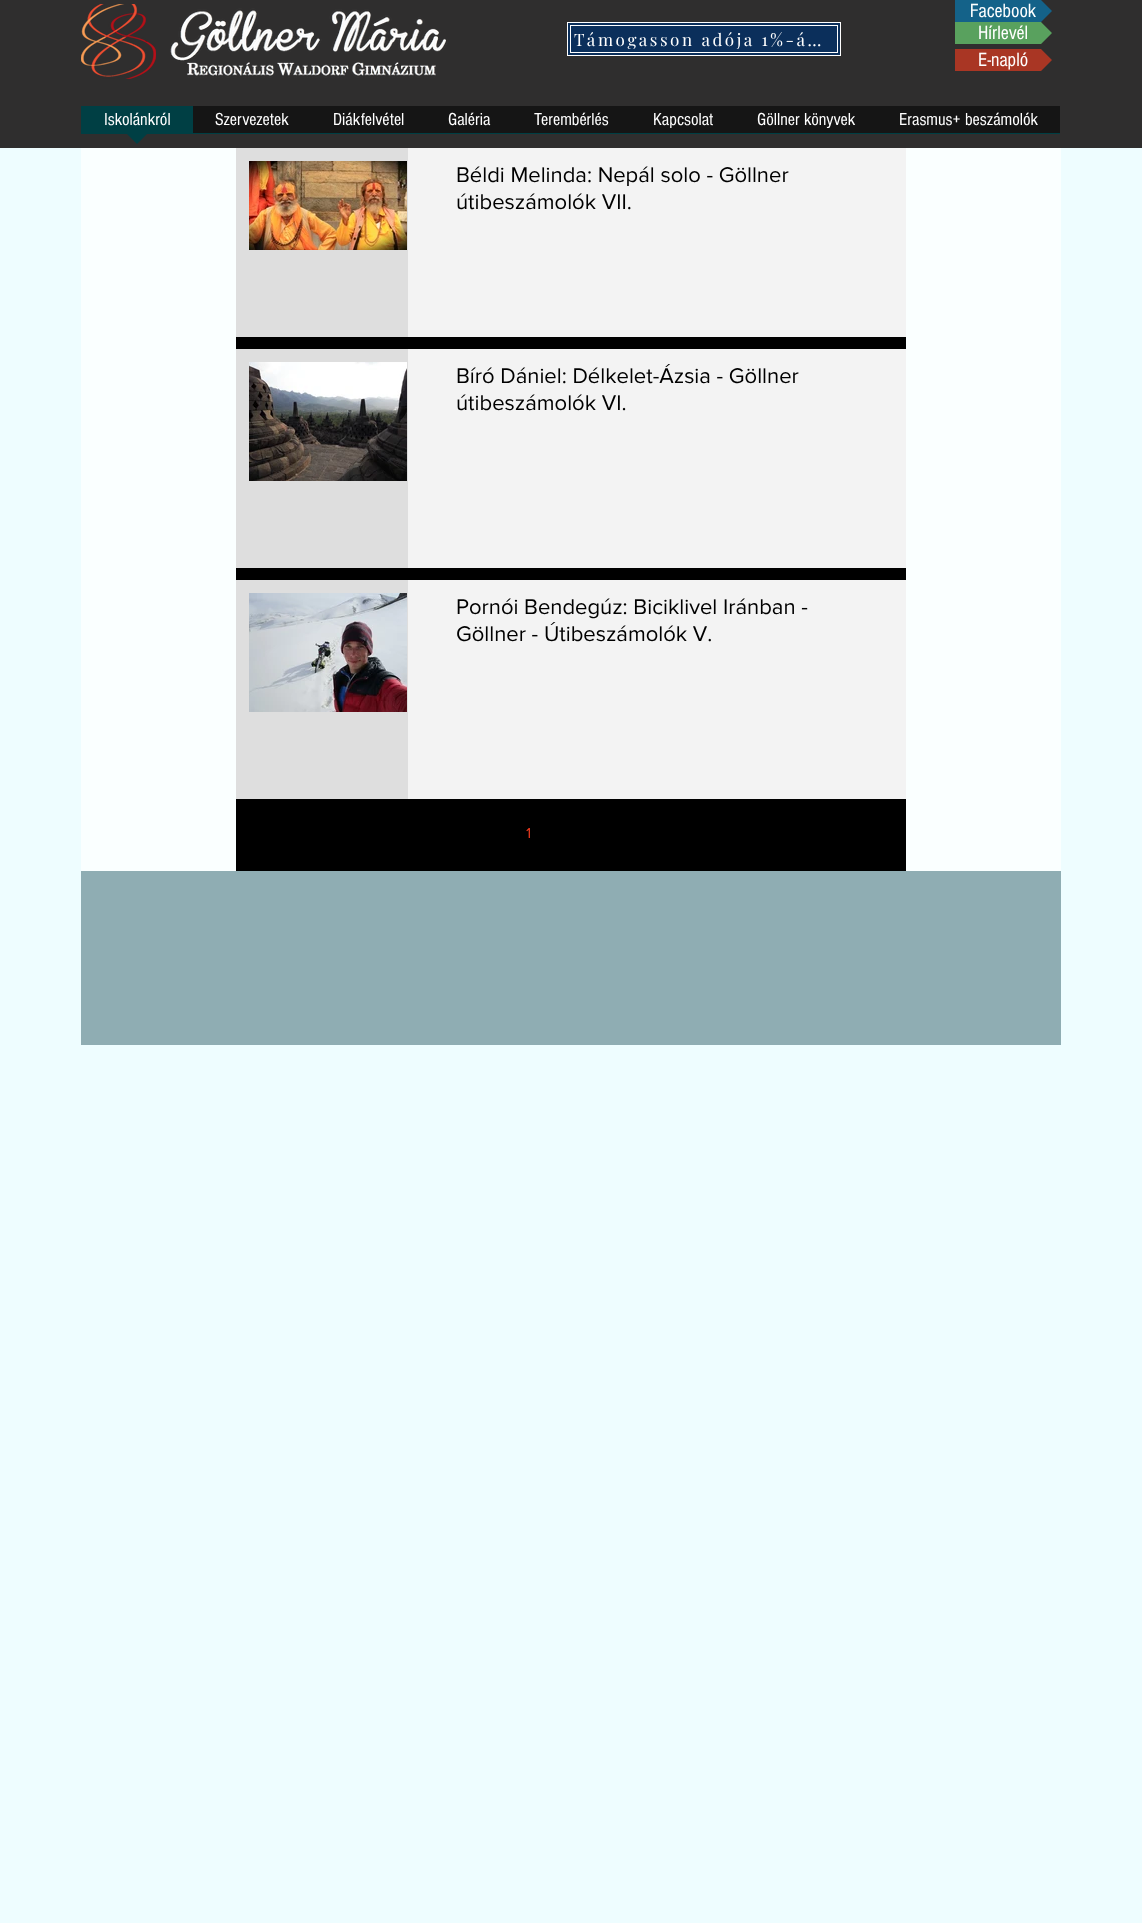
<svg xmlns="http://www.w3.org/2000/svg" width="1142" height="1923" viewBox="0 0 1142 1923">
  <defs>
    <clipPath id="clip1"><rect x="955" y="0" width="97" height="22"/></clipPath>
    <clipPath id="clip2"><rect x="574" y="29" width="260" height="20"/></clipPath>
    <clipPath id="clip3"><rect x="955" y="22" width="97" height="22"/></clipPath>
    <clipPath id="clip4"><rect x="955" y="49" width="97" height="22"/></clipPath>
  </defs>
  <rect width="100%" height="100%" fill="#eefdff"/>
  <rect x="0" y="0" width="1142" height="148" fill="#2f2e2e"/>
  <image x="81" y="4" width="75" height="75" href="img1.png"/>
  <image x="170" y="8" width="278" height="70" href="img2.png"/>
  <rect x="955" y="0" width="47" height="22" fill="#146289"/>
  <path d="M1052 11H1002V-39Z" fill="#146289"/>
  <g clip-path="url(#clip1)">
    <path d="M1002 11H1052L1002 61Z" fill="#146289"/>
  </g>
  <text x="970" y="17" font-family="'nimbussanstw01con'" font-size="20" fill="#ffffff">Facebook</text>
  <rect x="567.5" y="22.5" width="273" height="33" fill="#0b2f5b" stroke="#ffffff"/>
  <rect x="570.5" y="25.5" width="267" height="27" fill="none" stroke="#ffffff"/>
  <g clip-path="url(#clip2)">
    <text x="574" y="46" font-family="Playfair Display" font-size="17" letter-spacing="2.55" fill="#ffffff">Támogasson adója 1%-á…</text>
  </g>
  <rect x="955" y="22" width="47" height="22" fill="#59a15e"/>
  <g clip-path="url(#clip3)">
    <path d="M1052 33H1002V-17ZM1002 33H1052L1002 83Z" fill="#59a15e"/>
  </g>
  <text x="978" y="39" font-family="'nimbussanstw01con'" font-size="20" fill="#ffffff">Hírlevél</text>
  <rect x="955" y="49" width="47" height="22" fill="#a93624"/>
  <g clip-path="url(#clip4)">
    <path d="M1052 60H1002V10ZM1002 60H1052L1002 110Z" fill="#a93624"/>
  </g>
  <text x="978" y="66" font-family="'nimbussanstw01con'" font-size="20" fill="#ffffff">E-napló</text>
  <rect x="193" y="106" width="867" height="27" fill="#151515"/>
  <rect x="81" y="133" width="979" height="1" fill="#003f44"/>
  <rect x="81" y="106" width="112" height="27" fill="#003f44"/>
  <text x="104" y="125" font-family="'nimbussanstw01con'" font-size="18" fill="#ffffff">Iskolánkról</text>
  <path d="M126 133H148L137 144Z" fill="#003f44"/>
  <text x="215" y="125" font-family="'nimbussanstw01con'" font-size="18" fill="#ffffff">Szervezetek</text>
  <text x="333" y="125" font-family="'nimbussanstw01con'" font-size="18" fill="#ffffff">Diákfelvétel</text>
  <text x="448" y="125" font-family="'nimbussanstw01con'" font-size="18" fill="#ffffff">Galéria</text>
  <text x="534" y="125" font-family="'nimbussanstw01con'" font-size="18" fill="#ffffff">Terembérlés</text>
  <text x="653" y="125" font-family="'nimbussanstw01con'" font-size="18" fill="#ffffff">Kapcsolat</text>
  <text x="757" y="125" font-family="'nimbussanstw01con'" font-size="18" fill="#ffffff">Göllner könyvek</text>
  <text x="899" y="125" font-family="'nimbussanstw01con'" font-size="18" fill="#ffffff">Erasmus+ beszámolók</text>
  <rect x="81" y="148" width="980" height="723" fill="#faffff"/>
  <rect x="236" y="337" width="670" height="534" fill="#000000"/>
  <rect x="236" y="148" width="172" height="189" fill="#dedede"/>
  <image x="249" y="161" width="158" height="89" href="img3.png"/>
  <rect x="408" y="148" width="498" height="189" fill="#f3f3f3"/>
  <text x="456" y="182" font-family="'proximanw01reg'" font-size="22" fill="#000000">Béldi Melinda: Nepál solo - Göllner</text>
  <text x="456" y="209" font-family="'proximanw01reg'" font-size="22" fill="#000000">útibeszámolók VII.</text>
  <rect x="236" y="349" width="172" height="219" fill="#dedede"/>
  <image x="249" y="362" width="158" height="119" href="img4.png"/>
  <rect x="408" y="349" width="498" height="219" fill="#f3f3f3"/>
  <text x="456" y="383" font-family="'proximanw01reg'" font-size="22" fill="#000000">Bíró Dániel: Délkelet-Ázsia - Göllner</text>
  <text x="456" y="410" font-family="'proximanw01reg'" font-size="22" fill="#000000">útibeszámolók VI.</text>
  <rect x="236" y="580" width="172" height="219" fill="#dedede"/>
  <image x="249" y="593" width="158" height="119" href="img5.png"/>
  <rect x="408" y="580" width="498" height="219" fill="#f3f3f3"/>
  <text x="456" y="614" font-family="'proximanw01reg'" font-size="22" fill="#000000">Pornói Bendegúz: Biciklivel Iránban -</text>
  <text x="456" y="641" font-family="'proximanw01reg'" font-size="22" fill="#000000">Göllner - Útibeszámolók V.</text>
  <text x="526" y="838" font-family="'proximanw01reg'" font-size="15" fill="#ed3a1e">1</text>
  <rect x="81" y="871" width="980" height="174" fill="#8fadb3"/>
</svg>
